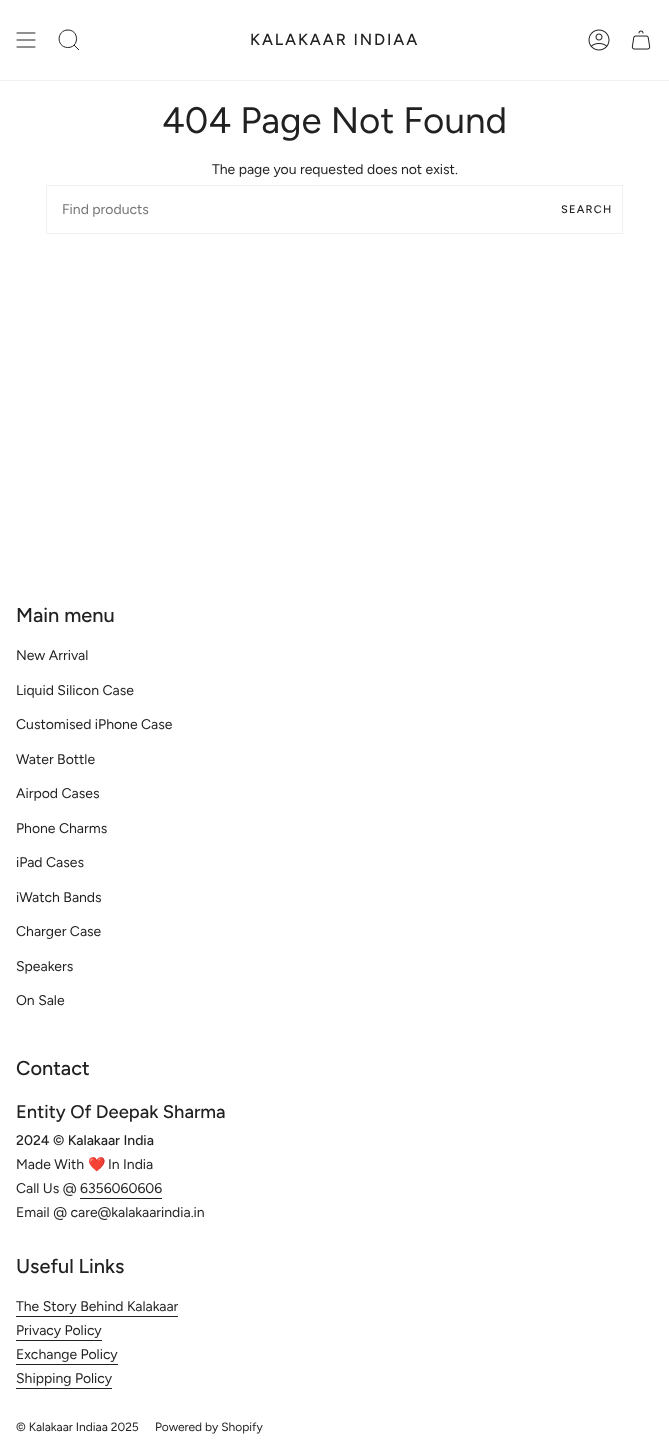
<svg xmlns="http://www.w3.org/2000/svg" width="669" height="1447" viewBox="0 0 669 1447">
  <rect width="100%" height="100%" fill="#ffffff"/>
  <rect x="0" y="80" width="669" height="1" fill="#f0f0f0"/>
  <path d="M17 33H35M17 40H35M17 47H35" fill="none" stroke="#212121" stroke-linecap="round" stroke-linejoin="round"/>
  <path d="M68 30C79.5 30 79.5 48 67.5 47.5C56 47 56.5 30 68 30ZM74 45L79 50" fill="none" stroke="#212121"/>
  <text x="250" y="45" font-family="Figtree" font-size="16" font-weight="500" letter-spacing="1.9" fill="#212121">KALAKAAR INDIAA</text>
  <image x="588" y="29" width="22" height="22" href="img1.png"/>
  <image x="631" y="30" width="20" height="20" href="img2.png"/>
  <text x="162" y="133" font-family="Figtree" font-size="36.75" fill="#212121">404 Page Not Found</text>
  <text x="212" y="174" font-family="Figtree" font-size="14" fill="#212121">The page you requested does not exist.</text>
  <rect x="46.5" y="185.5" width="576" height="48" fill="none" stroke="#f0f0f0"/>
  <text x="62" y="214" font-family="Figtree" font-size="14" fill="#757575">Find products</text>
  <text x="561" y="213" font-family="Figtree" font-size="11" font-weight="500" letter-spacing="1.25" fill="#212121">SEARCH</text>
  <text x="16" y="622" font-family="Figtree" font-size="20" font-weight="500" fill="#212121">Main menu</text>
  <text x="16" y="660" font-family="Figtree" font-size="14" fill="#212121">New Arrival</text>
  <text x="16" y="695" font-family="Figtree" font-size="14" fill="#212121">Liquid Silicon Case</text>
  <text x="16" y="729" font-family="Figtree" font-size="14" fill="#212121">Customised iPhone Case</text>
  <text x="16" y="764" font-family="Figtree" font-size="14" fill="#212121">Water Bottle</text>
  <text x="16" y="798" font-family="Figtree" font-size="14" fill="#212121">Airpod Cases</text>
  <text x="16" y="833" font-family="Figtree" font-size="14" fill="#212121">Phone Charms</text>
  <text x="16" y="867" font-family="Figtree" font-size="14" fill="#212121">iPad Cases</text>
  <text x="16" y="902" font-family="Figtree" font-size="14" fill="#212121">iWatch Bands</text>
  <text x="16" y="936" font-family="Figtree" font-size="14" fill="#212121">Charger Case</text>
  <text x="16" y="971" font-family="Figtree" font-size="14" fill="#212121">Speakers</text>
  <text x="16" y="1005" font-family="Figtree" font-size="14" fill="#212121">On Sale</text>
  <text x="16" y="1075" font-family="Figtree" font-size="20" font-weight="500" fill="#212121">Contact</text>
  <text x="16" y="1118" font-family="Figtree" font-size="18.4" font-weight="500" fill="#212121">Entity Of Deepak Sharma</text>
  <text x="16" y="1145" font-family="Figtree" font-size="14" font-weight="500" fill="#212121">2024 © Kalakaar India</text>
  <text x="16" y="1169" font-family="Figtree" font-size="14" fill="#212121">Made With</text>
  <text x="88" y="1169" font-family="Noto Color Emoji" font-size="14" fill="#212121">❤️</text>
  <text x="108" y="1169" font-family="Figtree" font-size="14" fill="#212121">In India</text>
  <text x="16" y="1193" font-family="Figtree" font-size="14" fill="#212121">Call Us @ 6356060606</text>
  <rect x="80" y="1198" width="82" height="1" fill="#212121"/>
  <text x="16" y="1217" font-family="Figtree" font-size="14" fill="#212121">Email @ care@kalakaarindia.in</text>
  <text x="16" y="1273" font-family="Figtree" font-size="20" font-weight="500" fill="#212121">Useful Links</text>
  <text x="16" y="1311" font-family="Figtree" font-size="14" fill="#212121">The Story Behind Kalakaar</text>
  <rect x="16" y="1316" width="162" height="1" fill="#212121"/>
  <text x="16" y="1335" font-family="Figtree" font-size="14" fill="#212121">Privacy Policy</text>
  <rect x="16" y="1340" width="86" height="1" fill="#212121"/>
  <text x="16" y="1359" font-family="Figtree" font-size="14" fill="#212121">Exchange Policy</text>
  <rect x="16" y="1364" width="102" height="1" fill="#212121"/>
  <text x="16" y="1383" font-family="Figtree" font-size="14" fill="#212121">Shipping Policy</text>
  <rect x="16" y="1388" width="96" height="1" fill="#212121"/>
  <text x="16" y="1431" font-family="Figtree" font-size="12" fill="#212121">© Kalakaar Indiaa 2025</text>
  <text x="155" y="1431" font-family="Figtree" font-size="12" fill="#212121">Powered by Shopify</text>
</svg>
